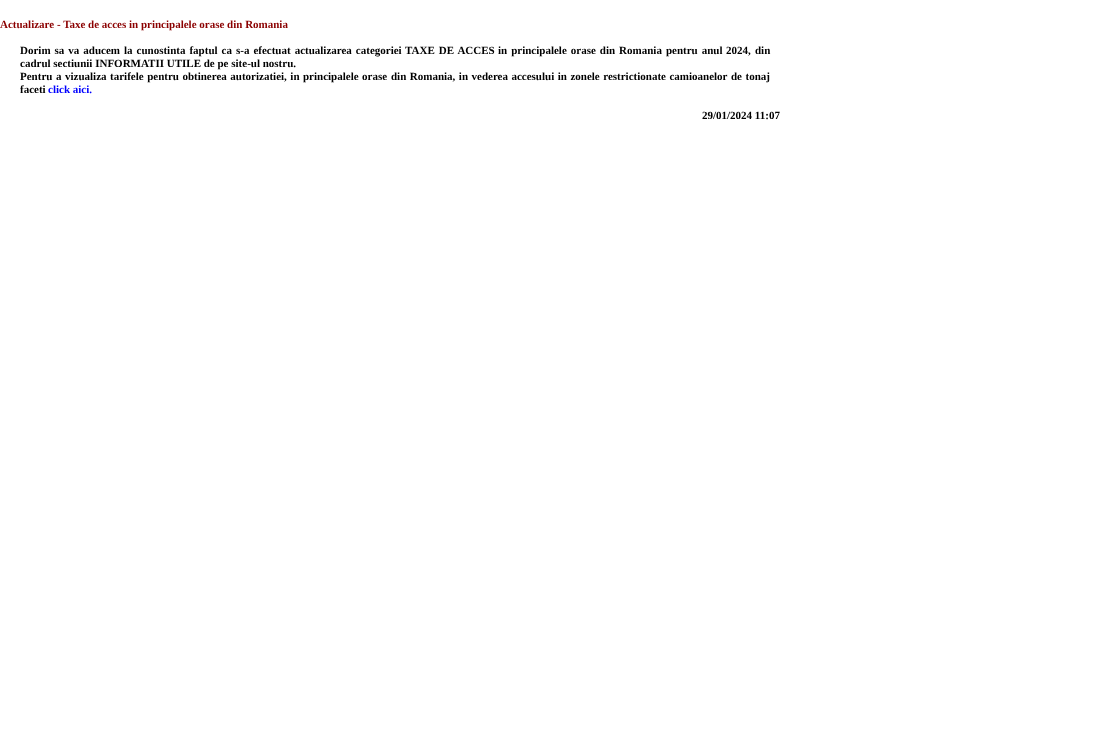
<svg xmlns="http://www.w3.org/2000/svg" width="1118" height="741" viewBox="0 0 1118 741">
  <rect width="100%" height="100%" fill="#ffffff"/>
  <text x="0" y="28" font-family="Liberation Serif" font-size="11" font-weight="bold" fill="#8b0000">Actualizare - Taxe de acces in principalele orase din Romania</text>
  <text x="20" y="54" word-spacing="1.25" font-family="Liberation Serif" font-size="11" font-weight="bold" fill="#000000">Dorim sa va aducem la cunostinta faptul ca s-a efectuat actualizarea categoriei</text>
  <text x="405" y="54" word-spacing="1.25" font-family="Liberation Serif" font-size="11" font-weight="bold" fill="#000000">TAXE DE ACCES</text>
  <text x="498" y="54" word-spacing="1.25" font-family="Liberation Serif" font-size="11" font-weight="bold" fill="#000000">in principalele orase din Romania pentru anul</text>
  <text x="726" y="54" font-family="Liberation Serif" font-size="11" font-weight="bold" fill="#000000">2024,</text>
  <text x="755" y="54" font-family="Liberation Serif" font-size="11" font-weight="bold" fill="#000000">din</text>
  <text x="20" y="67" font-family="Liberation Serif" font-size="11" font-weight="bold" fill="#000000">cadrul sectiunii INFORMATII UTILE de pe site-ul nostru.</text>
  <text x="20" y="80" word-spacing="0.75" font-family="Liberation Serif" font-size="11" font-weight="bold" fill="#000000">Pentru a</text>
  <text x="65" y="80" word-spacing="0.75" font-family="Liberation Serif" font-size="11" font-weight="bold" fill="#000000">vizualiza tarifele pentru obtinerea autorizatiei, in principalele orase</text>
  <text x="391" y="80" word-spacing="0.75" font-family="Liberation Serif" font-size="11" font-weight="bold" fill="#000000">din Romania, in vederea accesului in zonele restrictionate camioanelor</text>
  <text x="731" y="80" word-spacing="0.75" font-family="Liberation Serif" font-size="11" font-weight="bold" fill="#000000">de tonaj</text>
  <text x="20" y="93" font-family="Liberation Serif" font-size="11" font-weight="bold" fill="#000000">faceti</text>
  <text x="48" y="93" font-family="Liberation Serif" font-size="11" font-weight="bold" fill="#0000ff">click aici.</text>
  <text x="702" y="119" font-family="Liberation Serif" font-size="11" font-weight="bold" fill="#000000">29/01/2024 11:07</text>
</svg>
